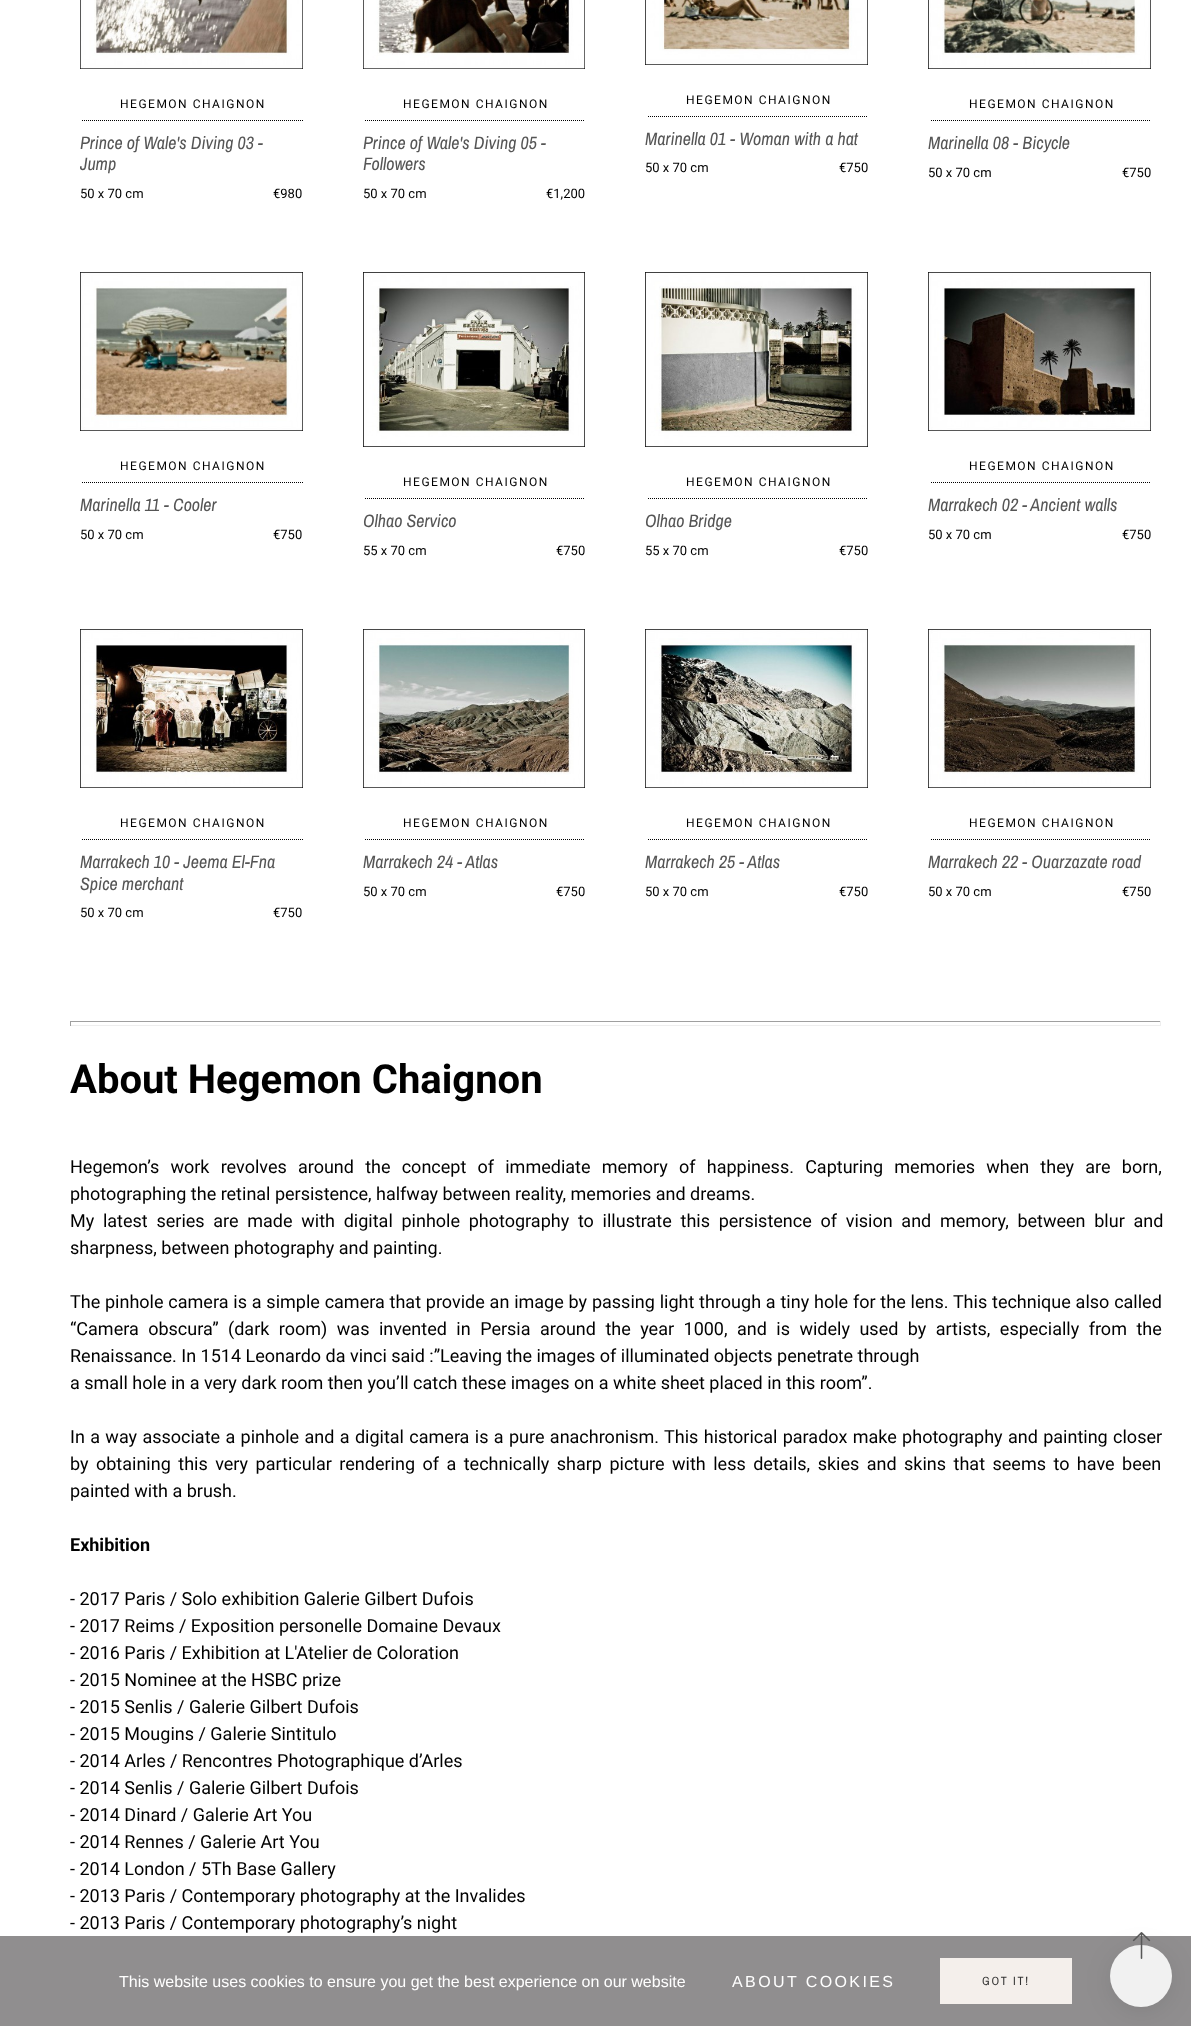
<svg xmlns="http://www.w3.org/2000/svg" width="1191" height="2026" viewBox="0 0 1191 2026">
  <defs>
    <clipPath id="clip1"><rect x="80" y="98" width="223" height="114"/></clipPath>
    <filter id="blur1" x="-50%" y="-200%" width="200%" height="500%"><feGaussianBlur stdDeviation="13.5"/></filter>
  </defs>
  <rect width="100%" height="100%" fill="#ffffff"/>
  <image x="80" y="0" width="223" height="69" href="img1.png"/>
  <path d="M82 120.5H303" fill="none" stroke="#000000" stroke-dasharray="1 1"/>
  <text x="120" y="108" font-family="Roboto" font-size="12" letter-spacing="1.5" fill="#000000">HEGEMON CHAIGNON</text>
  <text x="80" y="149" font-family="Archivo Narrow" font-size="18" font-style="italic" fill="#555555">Prince of Wale's Diving 03 -</text>
  <g clip-path="url(#clip1)">
    <text x="80" y="170" font-family="Archivo Narrow" font-size="18" font-style="italic" fill="#555555">Jump</text>
  </g>
  <text x="80" y="198" font-family="Roboto" font-size="13" fill="#000000">50 x 70 cm</text>
  <text x="273" y="198" font-family="Roboto" font-size="13" fill="#000000">€980</text>
  <image x="363" y="0" width="222" height="69" href="img2.png"/>
  <path d="M365 120.5H585" fill="none" stroke="#000000" stroke-dasharray="1 1"/>
  <text x="403" y="108" font-family="Roboto" font-size="12" letter-spacing="1.5" fill="#000000">HEGEMON CHAIGNON</text>
  <text x="363" y="149" font-family="Archivo Narrow" font-size="18" font-style="italic" fill="#555555">Prince of Wale's Diving 05 -</text>
  <text x="363" y="170" font-family="Archivo Narrow" font-size="18" font-style="italic" fill="#555555">Followers</text>
  <text x="363" y="198" font-family="Roboto" font-size="13" fill="#000000">50 x 70 cm</text>
  <text x="546" y="198" font-family="Roboto" font-size="13" fill="#000000">€1,200</text>
  <image x="645" y="0" width="223" height="65" href="img3.png"/>
  <path d="M648 116.5H868" fill="none" stroke="#000000" stroke-dasharray="1 1"/>
  <text x="686" y="104" font-family="Roboto" font-size="12" letter-spacing="1.5" fill="#000000">HEGEMON CHAIGNON</text>
  <text x="645" y="145" font-family="Archivo Narrow" font-size="18" font-style="italic" fill="#555555">Marinella 01 - Woman with a hat</text>
  <text x="645" y="172" font-family="Roboto" font-size="13" fill="#000000">50 x 70 cm</text>
  <text x="839" y="172" font-family="Roboto" font-size="13" fill="#000000">€750</text>
  <image x="928" y="0" width="223" height="69" href="img4.png"/>
  <path d="M931 120.5H1151" fill="none" stroke="#000000" stroke-dasharray="1 1"/>
  <text x="969" y="108" font-family="Roboto" font-size="12" letter-spacing="1.5" fill="#000000">HEGEMON CHAIGNON</text>
  <text x="928" y="149" font-family="Archivo Narrow" font-size="18" font-style="italic" fill="#555555">Marinella 08 - Bicycle</text>
  <text x="928" y="177" font-family="Roboto" font-size="13" fill="#000000">50 x 70 cm</text>
  <text x="1122" y="177" font-family="Roboto" font-size="13" fill="#000000">€750</text>
  <image x="80" y="272" width="223" height="159" href="img5.png"/>
  <path d="M82 482.5H303" fill="none" stroke="#000000" stroke-dasharray="1 1"/>
  <text x="120" y="470" font-family="Roboto" font-size="12" letter-spacing="1.5" fill="#000000">HEGEMON CHAIGNON</text>
  <text x="80" y="511" font-family="Archivo Narrow" font-size="18" font-style="italic" fill="#555555">Marinella 11 - Cooler</text>
  <text x="80" y="539" font-family="Roboto" font-size="13" fill="#000000">50 x 70 cm</text>
  <text x="273" y="539" font-family="Roboto" font-size="13" fill="#000000">€750</text>
  <image x="363" y="272" width="222" height="175" href="img6.png"/>
  <path d="M365 498.5H585" fill="none" stroke="#000000" stroke-dasharray="1 1"/>
  <text x="403" y="486" font-family="Roboto" font-size="12" letter-spacing="1.5" fill="#000000">HEGEMON CHAIGNON</text>
  <text x="363" y="527" font-family="Archivo Narrow" font-size="18" font-style="italic" fill="#555555">Olhao Servico</text>
  <text x="363" y="555" font-family="Roboto" font-size="13" fill="#000000">55 x 70 cm</text>
  <text x="556" y="555" font-family="Roboto" font-size="13" fill="#000000">€750</text>
  <image x="645" y="272" width="223" height="175" href="img7.png"/>
  <path d="M648 498.5H868" fill="none" stroke="#000000" stroke-dasharray="1 1"/>
  <text x="686" y="486" font-family="Roboto" font-size="12" letter-spacing="1.5" fill="#000000">HEGEMON CHAIGNON</text>
  <text x="645" y="527" font-family="Archivo Narrow" font-size="18" font-style="italic" fill="#555555">Olhao Bridge</text>
  <text x="645" y="555" font-family="Roboto" font-size="13" fill="#000000">55 x 70 cm</text>
  <text x="839" y="555" font-family="Roboto" font-size="13" fill="#000000">€750</text>
  <image x="928" y="272" width="223" height="159" href="img8.png"/>
  <path d="M931 482.5H1151" fill="none" stroke="#000000" stroke-dasharray="1 1"/>
  <text x="969" y="470" font-family="Roboto" font-size="12" letter-spacing="1.5" fill="#000000">HEGEMON CHAIGNON</text>
  <text x="928" y="511" font-family="Archivo Narrow" font-size="18" font-style="italic" fill="#555555">Marrakech 02 - Ancient walls</text>
  <text x="928" y="539" font-family="Roboto" font-size="13" fill="#000000">50 x 70 cm</text>
  <text x="1122" y="539" font-family="Roboto" font-size="13" fill="#000000">€750</text>
  <image x="80" y="629" width="223" height="159" href="img9.png"/>
  <path d="M82 839.5H303" fill="none" stroke="#000000" stroke-dasharray="1 1"/>
  <text x="120" y="827" font-family="Roboto" font-size="12" letter-spacing="1.5" fill="#000000">HEGEMON CHAIGNON</text>
  <text x="80" y="868" font-family="Archivo Narrow" font-size="18" font-style="italic" fill="#555555">Marrakech 10 - Jeema El-Fna</text>
  <text x="80" y="890" font-family="Archivo Narrow" font-size="18" font-style="italic" fill="#555555">Spice merchant</text>
  <text x="80" y="917" font-family="Roboto" font-size="13" fill="#000000">50 x 70 cm</text>
  <text x="273" y="917" font-family="Roboto" font-size="13" fill="#000000">€750</text>
  <image x="363" y="629" width="222" height="159" href="img10.png"/>
  <path d="M365 839.5H585" fill="none" stroke="#000000" stroke-dasharray="1 1"/>
  <text x="403" y="827" font-family="Roboto" font-size="12" letter-spacing="1.5" fill="#000000">HEGEMON CHAIGNON</text>
  <text x="363" y="868" font-family="Archivo Narrow" font-size="18" font-style="italic" fill="#555555">Marrakech 24 - Atlas</text>
  <text x="363" y="896" font-family="Roboto" font-size="13" fill="#000000">50 x 70 cm</text>
  <text x="556" y="896" font-family="Roboto" font-size="13" fill="#000000">€750</text>
  <image x="645" y="629" width="223" height="159" href="img11.png"/>
  <path d="M648 839.5H868" fill="none" stroke="#000000" stroke-dasharray="1 1"/>
  <text x="686" y="827" font-family="Roboto" font-size="12" letter-spacing="1.5" fill="#000000">HEGEMON CHAIGNON</text>
  <text x="645" y="868" font-family="Archivo Narrow" font-size="18" font-style="italic" fill="#555555">Marrakech 25 - Atlas</text>
  <text x="645" y="896" font-family="Roboto" font-size="13" fill="#000000">50 x 70 cm</text>
  <text x="839" y="896" font-family="Roboto" font-size="13" fill="#000000">€750</text>
  <image x="928" y="629" width="223" height="159" href="img12.png"/>
  <path d="M931 839.5H1151" fill="none" stroke="#000000" stroke-dasharray="1 1"/>
  <text x="969" y="827" font-family="Roboto" font-size="12" letter-spacing="1.5" fill="#000000">HEGEMON CHAIGNON</text>
  <text x="928" y="868" font-family="Archivo Narrow" font-size="18" font-style="italic" fill="#555555">Marrakech 22 - Ouarzazate road</text>
  <text x="928" y="896" font-family="Roboto" font-size="13" fill="#000000">50 x 70 cm</text>
  <text x="1122" y="896" font-family="Roboto" font-size="13" fill="#000000">€750</text>
  <rect x="70" y="1021" width="1091" height="1" fill="#9f9f9f"/>
  <rect x="1160" y="1021" width="1" height="5" fill="#eeeeee"/>
  <rect x="70" y="1025" width="1091" height="1" fill="#eeeeee"/>
  <rect x="70" y="1021" width="1" height="5" fill="#9f9f9f"/>
  <text x="70" y="1093" font-family="Roboto" font-size="40" font-weight="bold" fill="#000000">About Hegemon Chaignon</text>
  <text x="70" y="1173" word-spacing="6.75" font-family="Roboto" font-size="18" fill="#000000">Hegemon’s work revolves around the concept of immediate memory of happiness. Capturing memories when they are born,</text>
  <text x="70" y="1200" font-family="Roboto" font-size="18" fill="#000000">photographing the retinal persistence, halfway between reality, memories and dreams.</text>
  <text x="70" y="1227" word-spacing="4.25" font-family="Roboto" font-size="18" fill="#000000">My latest series are made with digital pinhole photography to illustrate this persistence of vision and memory, between blur and</text>
  <text x="70" y="1254" font-family="Roboto" font-size="18" fill="#000000">sharpness, between photography and painting.</text>
  <text x="70" y="1308" word-spacing="0.35" font-family="Roboto" font-size="18" fill="#000000">The pinhole camera is a simple camera that provide an image by passing light through a tiny hole for the lens. This technique also called</text>
  <text x="70" y="1335" word-spacing="5" font-family="Roboto" font-size="18" fill="#000000">“Camera obscura” (dark room) was invented in Persia around the year 1000, and is widely used by artists, especially from the</text>
  <text x="70" y="1362" font-family="Roboto" font-size="18" fill="#000000">Renaissance. In 1514 Leonardo da vinci said :”Leaving the images of illuminated objects penetrate through</text>
  <text x="70" y="1389" font-family="Roboto" font-size="18" fill="#000000">a small hole in a very dark room then you’ll catch these images on a white sheet placed in this room”.</text>
  <text x="70" y="1443" word-spacing="0.9" font-family="Roboto" font-size="18" fill="#000000">In a way associate a pinhole and a digital camera is a pure anachronism. This historical paradox make photography and painting closer</text>
  <text x="70" y="1470" word-spacing="3" font-family="Roboto" font-size="18" fill="#000000">by obtaining this very particular rendering of a technically sharp picture with less details, skies and skins that seems to have been</text>
  <text x="70" y="1497" font-family="Roboto" font-size="18" fill="#000000">painted with a brush.</text>
  <text x="70" y="1551" font-family="Roboto" font-size="18" font-weight="bold" fill="#000000">Exhibition</text>
  <text x="70" y="1605" font-family="Roboto" font-size="18" fill="#000000">- 2017 Paris / Solo exhibition Galerie Gilbert Dufois</text>
  <text x="70" y="1632" font-family="Roboto" font-size="18" fill="#000000">- 2017 Reims / Exposition personelle Domaine Devaux</text>
  <text x="70" y="1659" font-family="Roboto" font-size="18" fill="#000000">- 2016 Paris / Exhibition at L'Atelier de Coloration</text>
  <text x="70" y="1686" font-family="Roboto" font-size="18" fill="#000000">- 2015 Nominee at the HSBC prize</text>
  <text x="70" y="1713" font-family="Roboto" font-size="18" fill="#000000">- 2015 Senlis / Galerie Gilbert Dufois</text>
  <text x="70" y="1740" font-family="Roboto" font-size="18" fill="#000000">- 2015 Mougins / Galerie Sintitulo</text>
  <text x="70" y="1767" font-family="Roboto" font-size="18" fill="#000000">- 2014 Arles / Rencontres Photographique d’Arles</text>
  <text x="70" y="1794" font-family="Roboto" font-size="18" fill="#000000">- 2014 Senlis / Galerie Gilbert Dufois</text>
  <text x="70" y="1821" font-family="Roboto" font-size="18" fill="#000000">- 2014 Dinard / Galerie Art You</text>
  <text x="70" y="1848" font-family="Roboto" font-size="18" fill="#000000">- 2014 Rennes / Galerie Art You</text>
  <text x="70" y="1875" font-family="Roboto" font-size="18" fill="#000000">- 2014 London / 5Th Base Gallery</text>
  <text x="70" y="1902" font-family="Roboto" font-size="18" fill="#000000">- 2013 Paris / Contemporary photography at the Invalides</text>
  <text x="70" y="1929" font-family="Roboto" font-size="18" fill="#000000">- 2013 Paris / Contemporary photography’s night</text>
  <rect x="0" y="1936" width="1191" height="90" fill="#908e8f"/>
  <text x="119" y="1987" font-family="Liberation Sans" font-size="16" fill="#ffffff">This website uses cookies to ensure you get the best experience on our website</text>
  <text x="732" y="1987" font-family="Liberation Sans" font-size="16" letter-spacing="2.4" fill="#ffffff">ABOUT COOKIES</text>
  <rect x="940" y="1958" width="132" height="46" fill="#f4efeb"/>
  <text x="982" y="1985" font-family="Archivo Narrow" font-size="12" letter-spacing="1.75" fill="#333333">GOT IT!</text>
  <rect x="1110" y="1950" width="62" height="62" rx="31" fill="#000000" fill-opacity="0.09" filter="url(#blur1)"/>
  <circle cx="1141" cy="1976" r="31" fill="#f1f1f1"/>
  <image x="1132" y="1932" width="19" height="27" href="img13.png"/>
</svg>
